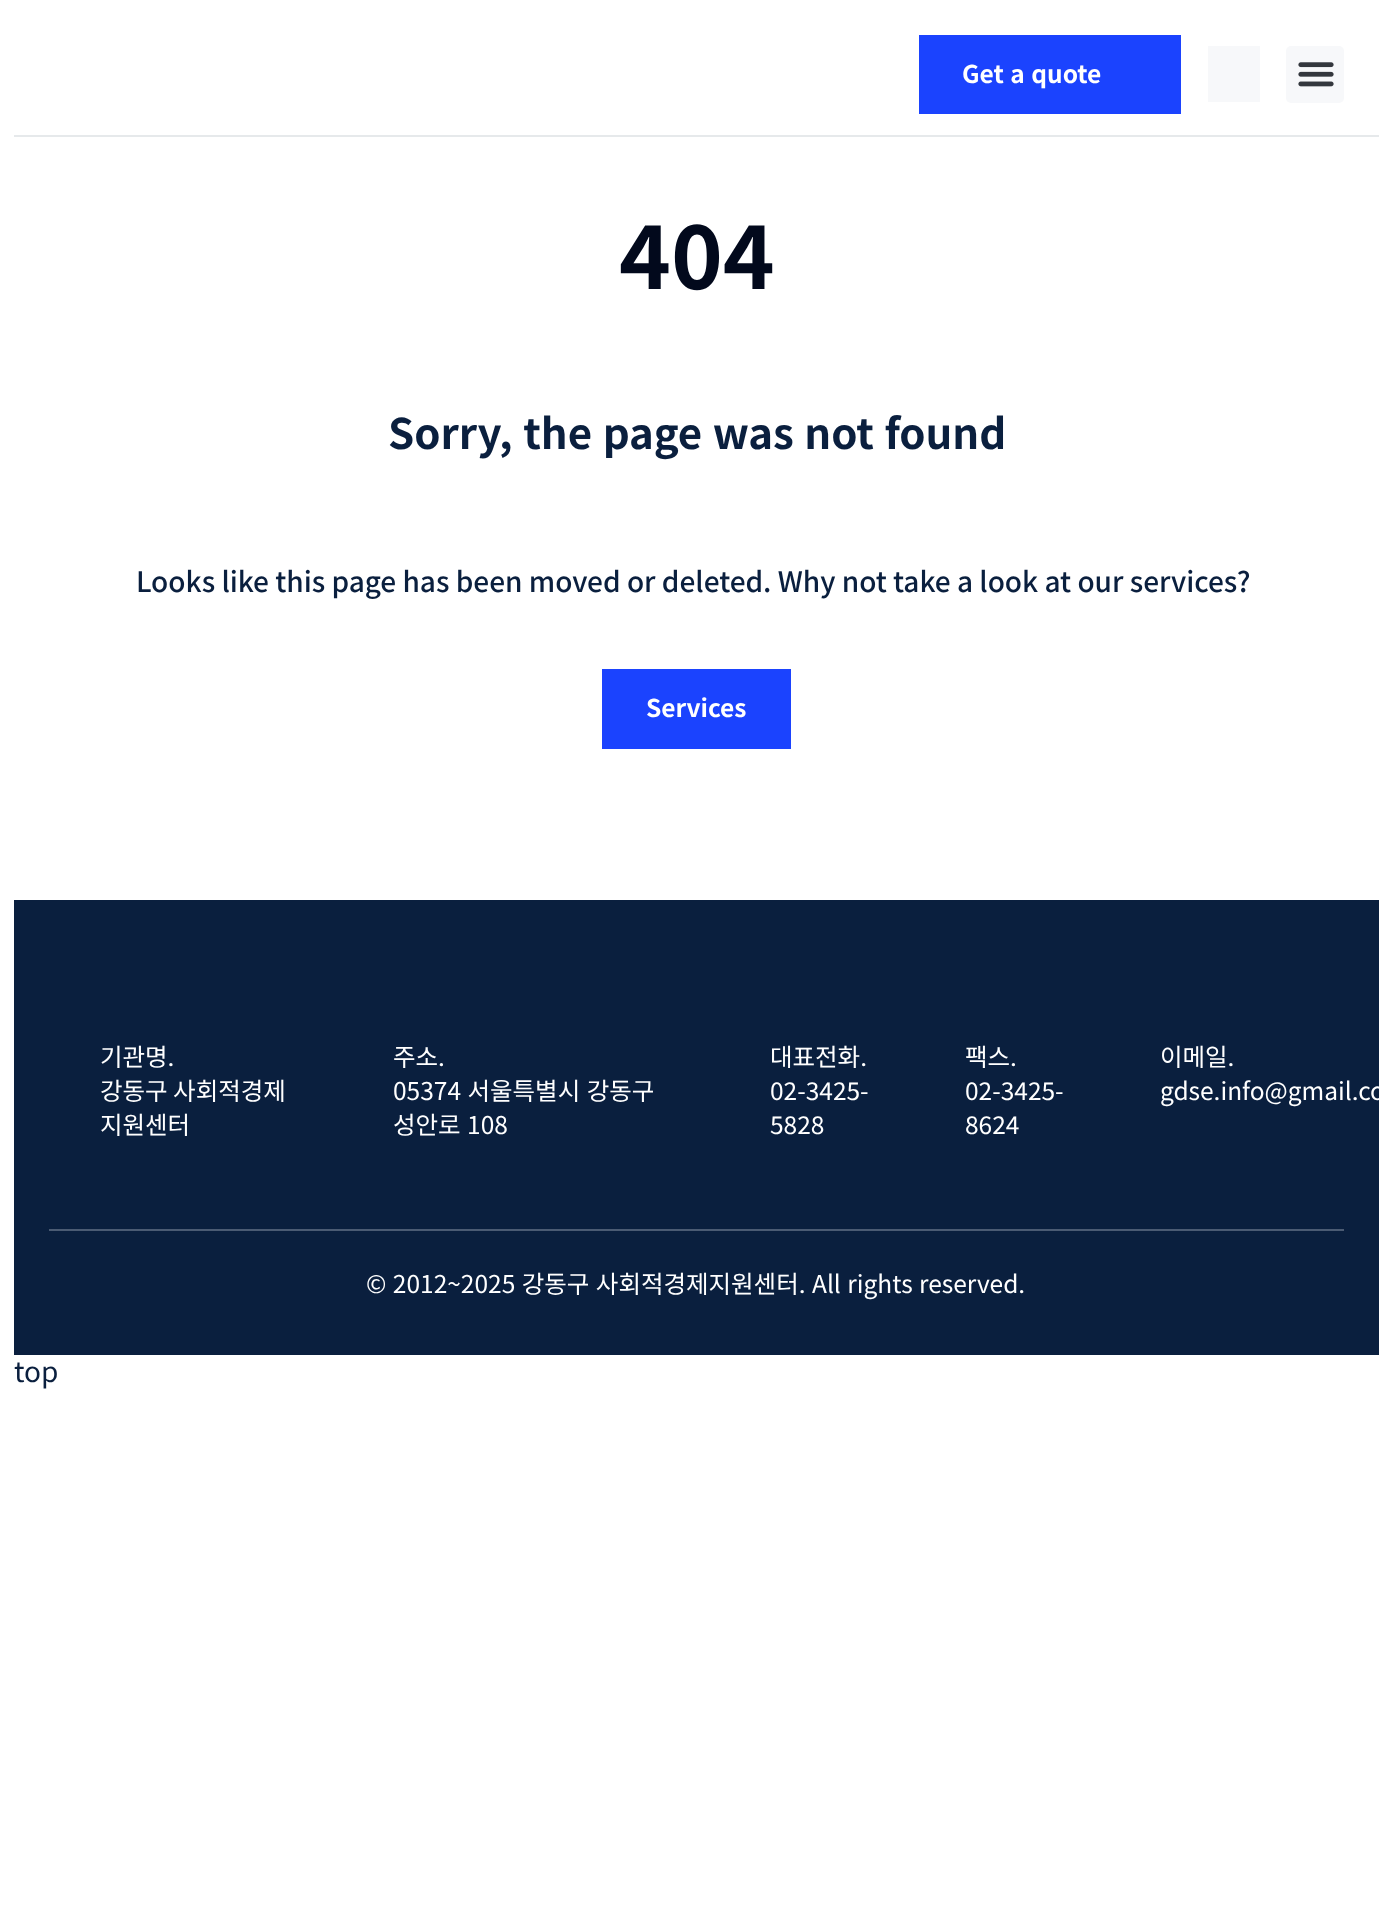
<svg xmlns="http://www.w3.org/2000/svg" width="1393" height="1909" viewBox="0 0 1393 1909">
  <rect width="100%" height="100%" fill="#ffffff"/>
  <rect x="14" y="135" width="1365" height="2" fill="#e6e9eb"/>
  <rect x="919" y="35" width="262" height="79" fill="#1b43fe"/>
  <text x="962" y="83" word-spacing="1" font-family="Noto Sans KR" font-size="24.5" font-weight="bold" fill="#ffffff">Get a quote</text>
  <rect x="1208" y="46" width="52" height="56" fill="#f7f8fa"/>
  <rect x="1286" y="46" width="58" height="57" rx="5" fill="#f7f8fa"/>
  <image x="1298" y="62" width="36" height="25" href="img1.png"/>
  <text x="619" y="289" font-family="Noto Sans KR" font-size="88" font-weight="bold" fill="#02091c">404</text>
  <text x="388" y="449" word-spacing="1" font-family="Noto Sans KR" font-size="42" font-weight="bold" fill="#0a1f3e">Sorry, the page was not found</text>
  <text x="136" y="592" font-family="Noto Sans KR" font-size="28" font-weight="500" fill="#0a1f3e">Looks like this page has been moved or deleted. Why not take a look at our services?</text>
  <rect x="602" y="669" width="189" height="80" fill="#1b43fe"/>
  <text x="646" y="717" font-family="Noto Sans KR" font-size="24.5" font-weight="bold" fill="#ffffff">Services</text>
  <rect x="14" y="900" width="1365" height="455" fill="#0a1f3e"/>
  <text x="100" y="1066" font-family="Noto Sans KR" font-size="24.5" fill="#ffffff">기관명.</text>
  <text x="100" y="1100" font-family="Noto Sans KR" font-size="24.5" fill="#ffffff">강동구 사회적경제</text>
  <text x="100" y="1134" font-family="Noto Sans KR" font-size="24.5" fill="#ffffff">지원센터</text>
  <text x="393" y="1066" font-family="Noto Sans KR" font-size="24.5" fill="#ffffff">주소.</text>
  <text x="393" y="1100" word-spacing="1" font-family="Noto Sans KR" font-size="24.5" fill="#ffffff">05374 서울특별시 강동구</text>
  <text x="393" y="1134" word-spacing="1" font-family="Noto Sans KR" font-size="24.5" fill="#ffffff">성안로 108</text>
  <text x="770" y="1066" font-family="Noto Sans KR" font-size="24.5" fill="#ffffff">대표전화.</text>
  <text x="770" y="1100" font-family="Noto Sans KR" font-size="24.5" fill="#ffffff">02-3425-</text>
  <text x="770" y="1134" font-family="Noto Sans KR" font-size="24.5" fill="#ffffff">5828</text>
  <text x="965" y="1066" font-family="Noto Sans KR" font-size="24.5" fill="#ffffff">팩스.</text>
  <text x="965" y="1100" font-family="Noto Sans KR" font-size="24.5" fill="#ffffff">02-3425-</text>
  <text x="965" y="1134" font-family="Noto Sans KR" font-size="24.5" fill="#ffffff">8624</text>
  <text x="1160" y="1066" font-family="Noto Sans KR" font-size="24.5" fill="#ffffff">이메일.</text>
  <text x="1160" y="1100" font-family="Noto Sans KR" font-size="24.5" fill="#ffffff">gdse.info@gmail.co</text>
  <rect x="49" y="1229" width="1295" height="2" fill="#4b5b73"/>
  <text x="366" y="1293" word-spacing="1" font-family="Noto Sans KR" font-size="24.5" fill="#ffffff">© 2012~2025 강동구 사회적경제지원센터. All rights reserved.</text>
  <text x="14" y="1382" font-family="Noto Sans KR" font-size="28" fill="#0a1f3e">top</text>
</svg>
